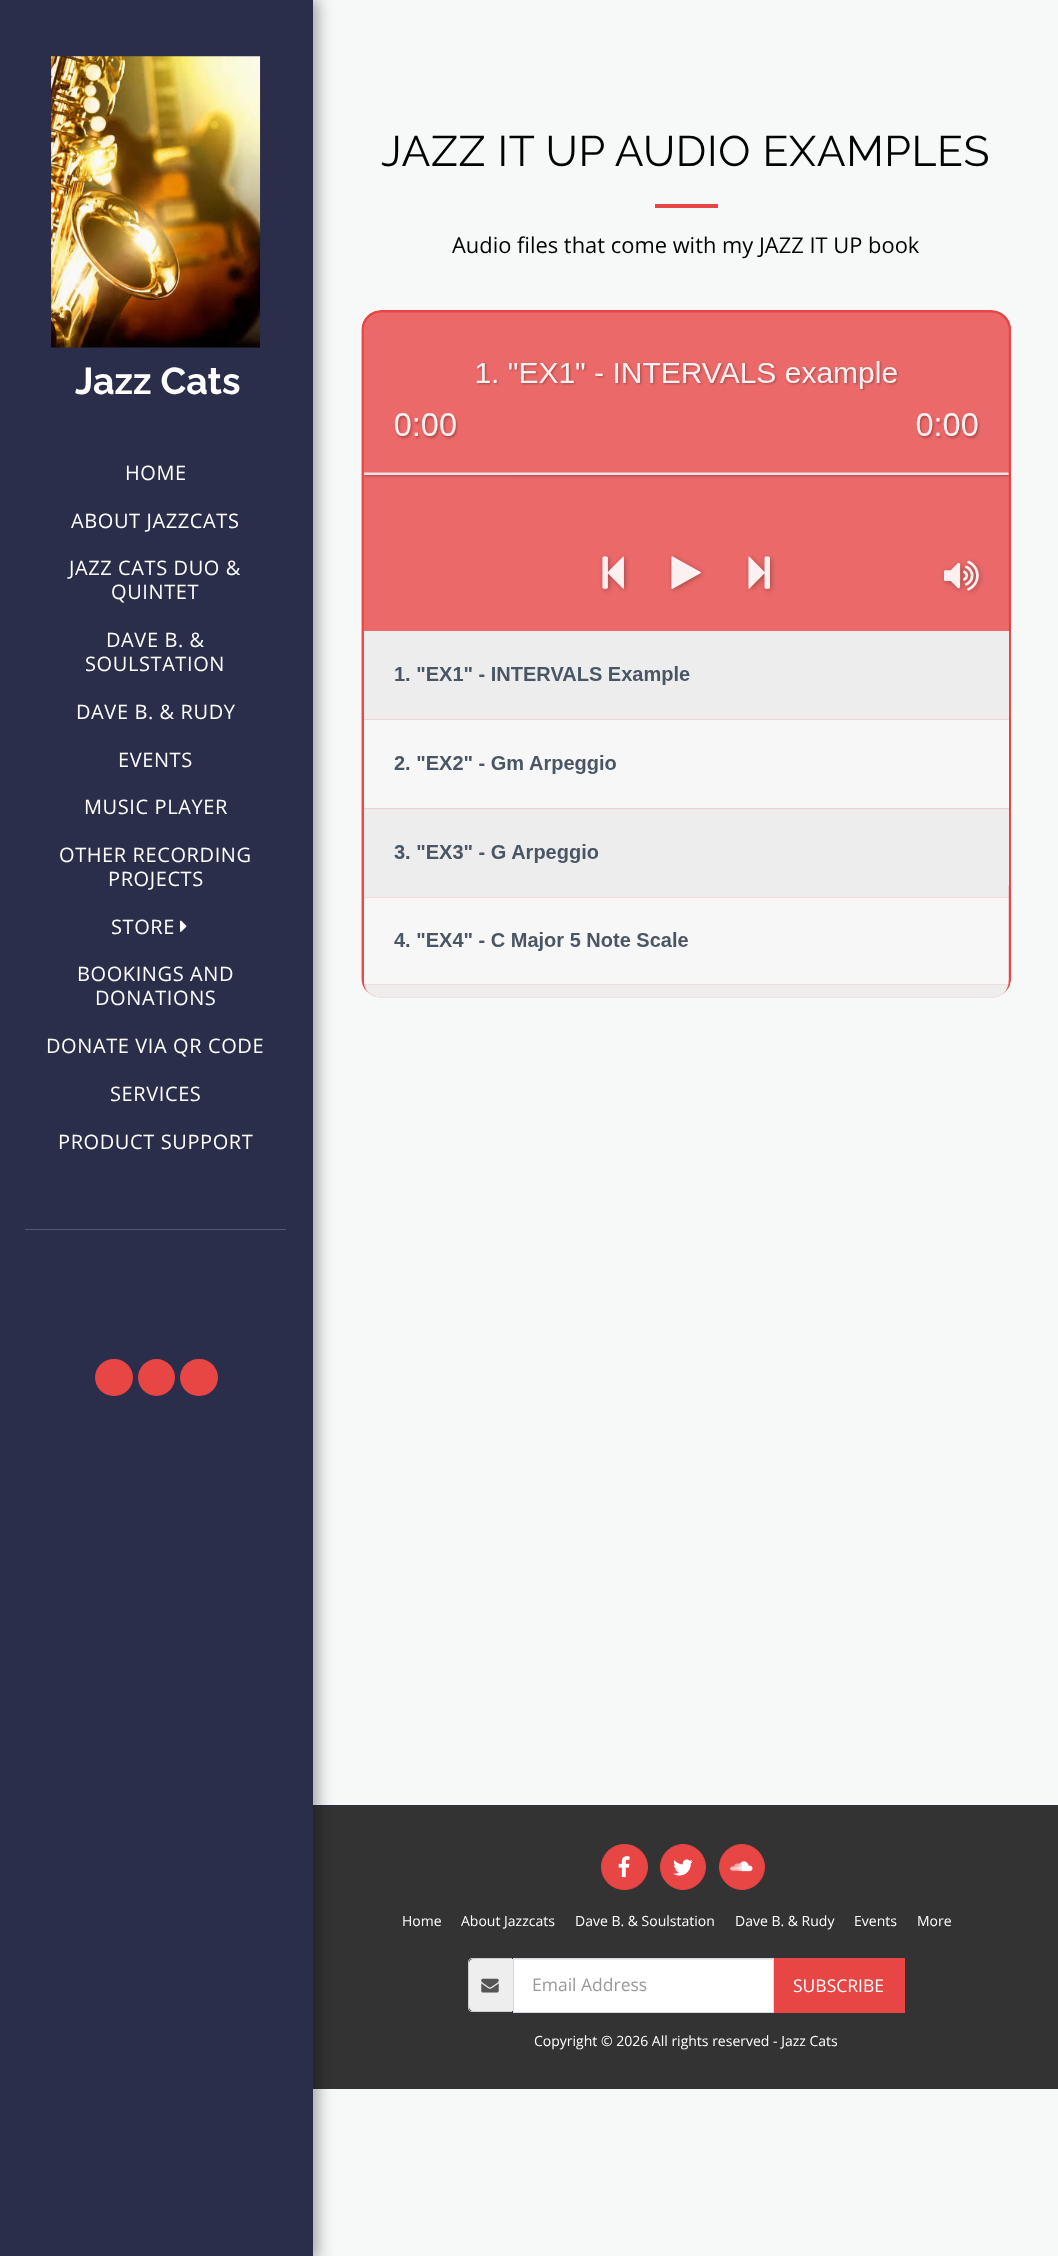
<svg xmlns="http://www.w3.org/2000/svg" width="1058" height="2256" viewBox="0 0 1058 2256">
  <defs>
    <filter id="blur1" x="-50%" y="-200%" width="200%" height="500%"><feGaussianBlur stdDeviation="7.5"/></filter>
  </defs>
  <rect width="100%" height="100%" fill="#f7f9f8"/>
  <rect x="313" y="1805" width="745" height="1" fill="#2b2e4a"/>
  <rect x="313" y="1806" width="745" height="283" fill="#333333"/>
  <rect x="0" y="-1" width="318" height="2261" fill="#000000" fill-opacity="0.35" filter="url(#blur1)"/>
  <rect x="0" y="0" width="313" height="2256" fill="#2b2e4a"/>
  <image x="51" y="56" width="210" height="292" href="img1.png"/>
  <text x="75" y="394" font-family="Raleway" font-size="37.5" font-weight="bold" fill="#ffffff">Jazz Cats</text>
  <text x="125" y="480" font-family="Open Sans" font-size="20" letter-spacing="0.6" fill="#ffffff">HOME</text>
  <text x="71" y="528" font-family="Open Sans" font-size="20" letter-spacing="0.6" fill="#ffffff">ABOUT JAZZCATS</text>
  <text x="69" y="575" font-family="Open Sans" font-size="20" letter-spacing="0.6" fill="#ffffff">JAZZ CATS DUO &amp;</text>
  <text x="111" y="599" font-family="Open Sans" font-size="20" letter-spacing="0.6" fill="#ffffff">QUINTET</text>
  <text x="106" y="647" font-family="Open Sans" font-size="20" letter-spacing="0.6" fill="#ffffff">DAVE B. &amp;</text>
  <text x="85" y="671" font-family="Open Sans" font-size="20" letter-spacing="0.6" fill="#ffffff">SOULSTATION</text>
  <text x="76" y="719" font-family="Open Sans" font-size="20" letter-spacing="0.6" fill="#ffffff">DAVE B. &amp; RUDY</text>
  <text x="118" y="767" font-family="Open Sans" font-size="20" letter-spacing="0.6" fill="#ffffff">EVENTS</text>
  <text x="84" y="814" font-family="Open Sans" font-size="20" letter-spacing="0.6" fill="#ffffff">MUSIC PLAYER</text>
  <text x="59" y="862" font-family="Open Sans" font-size="20" letter-spacing="0.6" fill="#ffffff">OTHER RECORDING</text>
  <text x="108" y="886" font-family="Open Sans" font-size="20" letter-spacing="0.6" fill="#ffffff">PROJECTS</text>
  <text x="111" y="934" font-family="Open Sans" font-size="20" letter-spacing="0.6" fill="#ffffff">STORE</text>
  <image x="180" y="920" width="7" height="12" href="img2.png"/>
  <text x="77" y="981" font-family="Open Sans" font-size="20" letter-spacing="0.6" fill="#ffffff">BOOKINGS AND</text>
  <text x="95" y="1005" font-family="Open Sans" font-size="20" letter-spacing="0.6" fill="#ffffff">DONATIONS</text>
  <text x="46" y="1053" font-family="Open Sans" font-size="20" letter-spacing="0.6" fill="#ffffff">DONATE VIA QR CODE</text>
  <text x="110" y="1101" font-family="Open Sans" font-size="20" letter-spacing="0.6" fill="#ffffff">SERVICES</text>
  <text x="58" y="1149" font-family="Open Sans" font-size="20" letter-spacing="0.6" fill="#ffffff">PRODUCT SUPPORT</text>
  <rect x="25" y="1229" width="261" height="1" fill="#55586e"/>
  <rect x="95" y="1359" width="38" height="37" rx="18.5" fill="#e84545"/>
  <circle cx="156.5" cy="1377.5" r="18.5" fill="#e84545"/>
  <rect x="180" y="1359" width="38" height="37" rx="18.5" fill="#e84545"/>
  <text x="381" y="166" font-family="Raleway" font-size="42.75" letter-spacing="0.6" fill="#000000">JAZZ IT UP AUDIO EXAMPLES</text>
  <rect x="655" y="204" width="63" height="4" fill="#e84545"/>
  <text x="452" y="253" font-family="Open Sans" font-size="21.9" fill="#000000">Audio files that come with my JAZZ IT UP book</text>
  <image x="361" y="310" width="650" height="688" href="img3.png"/>
  <rect x="601.5" y="1844.5" width="46" height="45" rx="22.5" fill="#e84545" stroke="#e84545"/>
  <image x="618" y="1856" width="12" height="22" href="img4.png"/>
  <circle cx="683" cy="1867" r="22.5" fill="#e84545" stroke="#e84545"/>
  <image x="673" y="1859" width="20" height="17" href="img5.png"/>
  <circle cx="742" cy="1867" r="22.5" fill="#e84545" stroke="#e84545"/>
  <image x="730" y="1861" width="23" height="11" href="img6.png"/>
  <text x="402" y="1926" font-family="Open Sans" font-size="14" fill="#ffffff">Home</text>
  <text x="461" y="1926" font-family="Open Sans" font-size="14" fill="#ffffff">About Jazzcats</text>
  <text x="575" y="1926" font-family="Open Sans" font-size="14" fill="#ffffff">Dave B. &amp; Soulstation</text>
  <text x="735" y="1926" font-family="Open Sans" font-size="14" fill="#ffffff">Dave B. &amp; Rudy</text>
  <text x="854" y="1926" font-family="Open Sans" font-size="14" fill="#ffffff">Events</text>
  <text x="917" y="1926" font-family="Open Sans" font-size="14" fill="#ffffff">More</text>
  <path d="M473 1959H513V2011H473C471 2011 469 2009 469 2007V1963C469 1961 471 1959 473 1959Z" fill="#eeeeee"/>
  <path d="M472 1958H512V2012H472C470 2012 468 2010 468 2008V1962C468 1960 470 1958 472 1958ZM472 1959H512V2011H472C470 2011 469 2010 469 2008V1962C469 1960 470 1959 472 1959Z" fill="#cccccc" fill-rule="evenodd"/>
  <image x="481" y="1978" width="18" height="15" href="img7.png"/>
  <rect x="514" y="1960" width="259" height="52" fill="#ffffff"/>
  <rect x="514" y="1959" width="259" height="1" fill="#ececec"/>
  <rect x="513.5" y="1958.5" width="260" height="54" fill="none" stroke="#d4d7e5"/>
  <text x="532" y="1991" font-family="Open Sans" font-size="17.5" fill="#999999">Email Address</text>
  <rect x="774" y="1958" width="131" height="55" fill="#e84545"/>
  <text x="793" y="1992" font-family="Open Sans" font-size="17.5" fill="#ffffff">SUBSCRIBE</text>
  <text x="534" y="2046" font-family="Open Sans" font-size="14" fill="#ffffff">Copyright © 2026 All rights reserved - Jazz Cats</text>
</svg>
